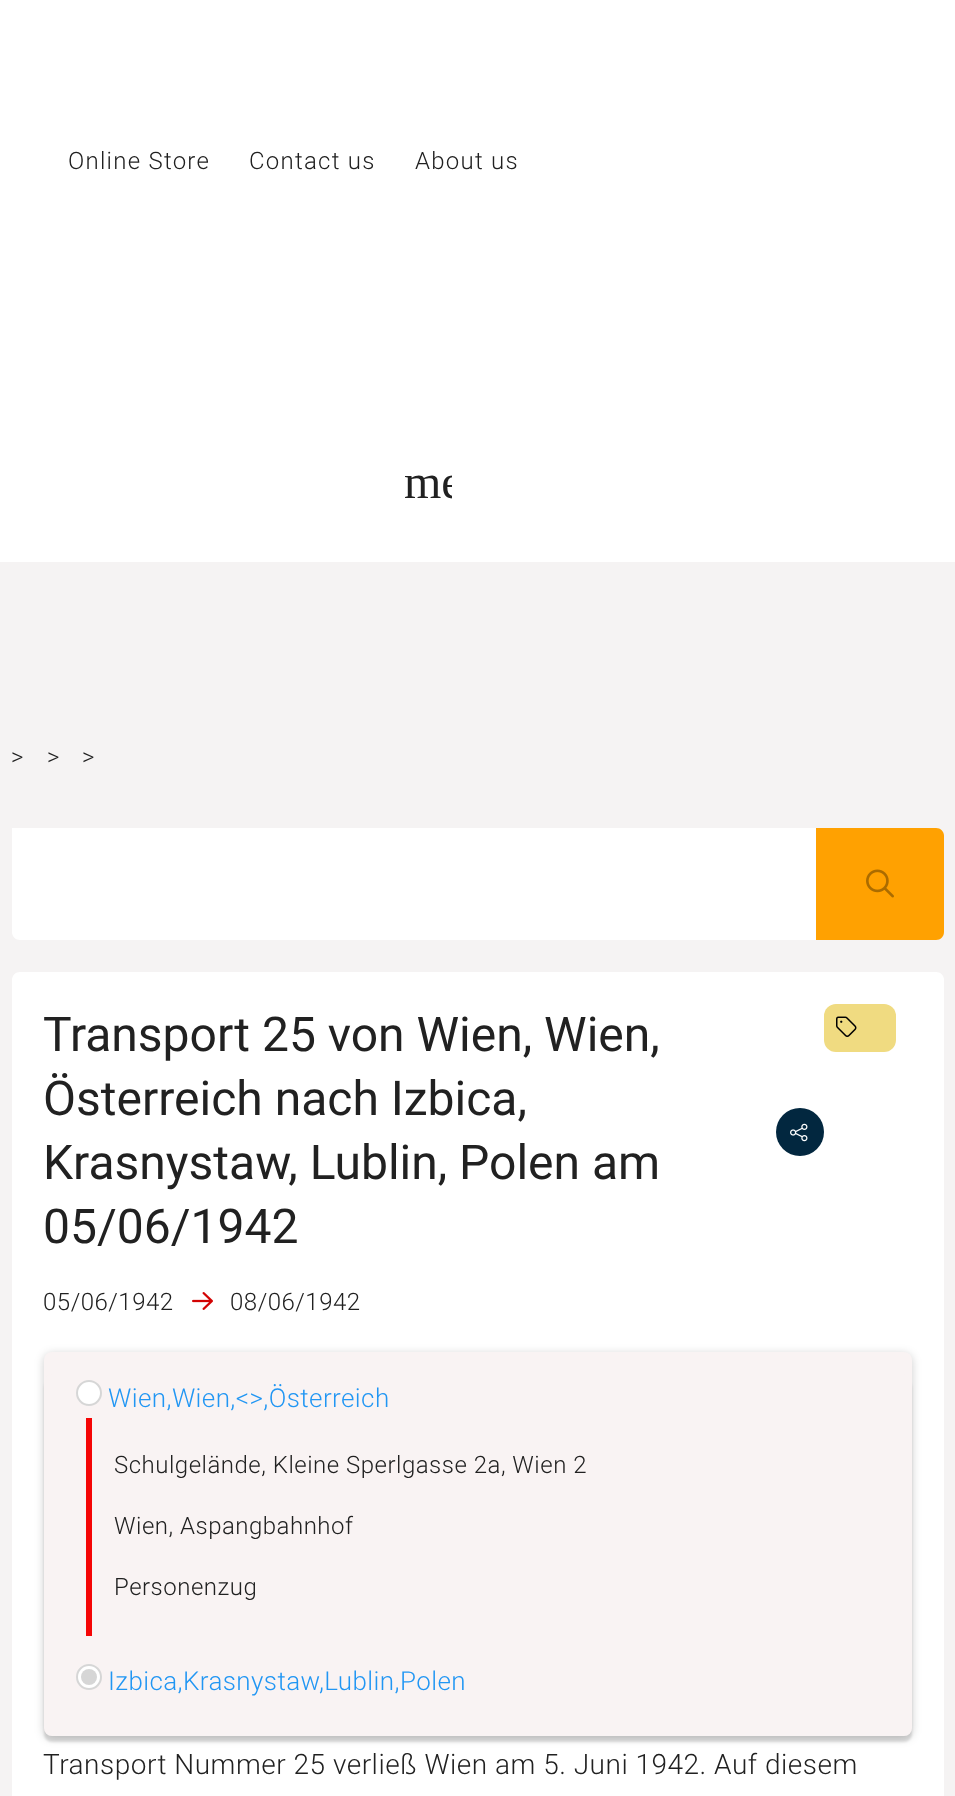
<svg xmlns="http://www.w3.org/2000/svg" width="955" height="1796" viewBox="0 0 955 1796">
  <defs>
    <clipPath id="clip1"><rect x="404" y="458" width="48" height="48"/></clipPath>
    <filter id="blur1" x="-50%" y="-200%" width="200%" height="500%"><feGaussianBlur stdDeviation="5"/></filter>
    <filter id="blur2" x="-50%" y="-200%" width="200%" height="500%"><feGaussianBlur stdDeviation="1"/></filter>
  </defs>
  <rect width="100%" height="100%" fill="#f5f3f3"/>
  <rect x="0" y="0" width="955" height="562" fill="#ffffff"/>
  <text x="68" y="169" font-family="Roboto" font-size="24" font-weight="300" letter-spacing="1.25" fill="#212121">Online Store</text>
  <text x="249" y="169" font-family="Roboto" font-size="24" font-weight="300" letter-spacing="1.25" fill="#212121">Contact us</text>
  <text x="415" y="169" font-family="Roboto" font-size="24" font-weight="300" letter-spacing="1.25" fill="#212121">About us</text>
  <g clip-path="url(#clip1)">
    <text x="404" y="498" font-family="Liberation Serif" font-size="48" fill="#212121">me</text>
  </g>
  <text x="11" y="765" font-family="'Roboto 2'" font-size="24" font-weight="300" letter-spacing="0.5" fill="#212121">&gt;</text>
  <text x="47" y="765" font-family="'Roboto 2'" font-size="24" font-weight="300" letter-spacing="0.5" fill="#212121">&gt;</text>
  <text x="82" y="765" font-family="'Roboto 2'" font-size="24" font-weight="300" letter-spacing="0.5" fill="#212121">&gt;</text>
  <path d="M12 828H816V940H20C15.5 940 12 936.5 12 932Z" fill="#ffffff"/>
  <path d="M816 828H936C940.5 828 944 831.5 944 836V932C944 936.5 940.5 940 936 940H816Z" fill="#ffa101"/>
  <image x="866" y="869" width="28" height="29" href="img1.png"/>
  <path d="M20 972H936C940.5 972 944 975.5 944 980V1796H12V980C12 975.5 15.5 972 20 972Z" fill="#ffffff"/>
  <text x="43" y="1051" font-family="Roboto" font-size="48" fill="#212121">Transport 25 von Wien, Wien,</text>
  <text x="43" y="1115" font-family="Roboto" font-size="48" fill="#212121">Österreich nach Izbica,</text>
  <text x="43" y="1179" font-family="Roboto" font-size="48" fill="#212121">Krasnystaw, Lublin, Polen am</text>
  <text x="43" y="1243" font-family="Roboto" font-size="48" fill="#212121">05/06/1942</text>
  <circle cx="800" cy="1132" r="24" fill="#02273f"/>
  <image x="790" y="1123" width="18" height="19" href="img2.png"/>
  <rect x="824" y="1004" width="72" height="48" rx="12" fill="#f0db81"/>
  <image x="836" y="1016" width="21" height="21" href="img3.png"/>
  <text x="43" y="1310" font-family="'Roboto 2'" font-size="24" font-weight="300" letter-spacing="0.5" fill="#212121">05/06/1942</text>
  <image x="192" y="1292" width="21" height="18" href="img4.png"/>
  <text x="230" y="1310" font-family="'Roboto 2'" font-size="24" font-weight="300" letter-spacing="0.5" fill="#212121">08/06/1942</text>
  <rect x="44" y="1354" width="868" height="384" rx="8" fill="#000000" fill-opacity="0.2" filter="url(#blur1)"/>
  <rect x="44" y="1352" width="868" height="384" rx="8" fill="#f9f3f3"/>
  <rect x="44" y="1380" width="868" height="362" rx="8" fill="#000000" fill-opacity="0.12" filter="url(#blur2)"/>
  <rect x="44" y="1374" width="868" height="362" rx="8" fill="#f9f3f3"/>
  <circle cx="89" cy="1393" r="13" fill="#ffffff"/>
  <circle cx="89" cy="1393" r="12" fill="none" stroke="#767676" stroke-opacity="0.3" stroke-width="2"/>
  <text x="108" y="1407" font-family="Roboto" font-size="26" font-weight="300" letter-spacing="0.4" fill="#2196f3">Wien,Wien,&lt;&gt;,Österreich</text>
  <rect x="86" y="1418" width="6" height="218" fill="#f50505"/>
  <text x="114" y="1473" font-family="Roboto" font-size="24" font-weight="300" letter-spacing="0.5" fill="#212121">Schulgelände, Kleine Sperlgasse 2a, Wien 2</text>
  <text x="114" y="1534" font-family="Roboto" font-size="24" font-weight="300" letter-spacing="0.5" fill="#212121">Wien, Aspangbahnhof</text>
  <text x="114" y="1595" font-family="Roboto" font-size="24" font-weight="300" letter-spacing="0.5" fill="#212121">Personenzug</text>
  <circle cx="89" cy="1677" r="13" fill="#ffffff"/>
  <circle cx="89" cy="1677" r="12" fill="none" stroke="#767676" stroke-opacity="0.3" stroke-width="2"/>
  <circle cx="89" cy="1677" r="8" fill="#d6d6d6"/>
  <text x="108" y="1690" font-family="Roboto" font-size="26" font-weight="300" letter-spacing="0.4" fill="#2196f3">Izbica,Krasnystaw,Lublin,Polen</text>
  <text x="43" y="1774" font-family="Roboto" font-size="28" font-weight="300" letter-spacing="0.5" fill="#212121">Transport Nummer 25 verließ Wien am 5. Juni 1942. Auf diesem</text>
</svg>
